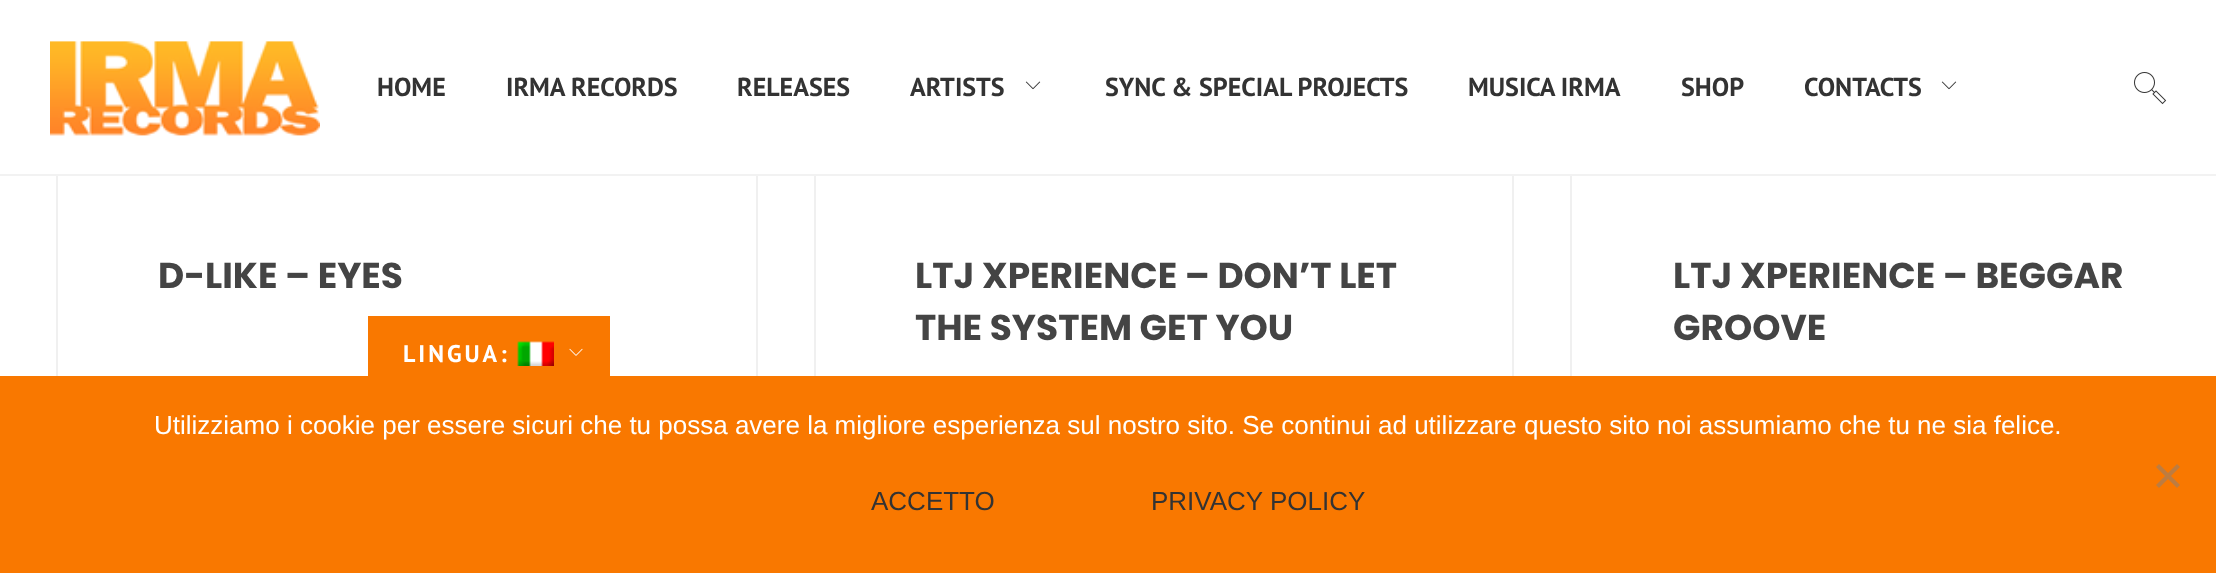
<svg xmlns="http://www.w3.org/2000/svg" width="2216" height="573" viewBox="0 0 2216 573">
  <rect width="100%" height="100%" fill="#ffffff"/>
  <rect x="57" y="-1" width="700" height="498" fill="none" stroke="#f0f0f0" stroke-width="2"/>
  <rect x="815" y="-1" width="698" height="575" fill="none" stroke="#f0f0f0" stroke-width="2"/>
  <rect x="1571" y="-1" width="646" height="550" fill="none" stroke="#f0f0f0" stroke-width="2"/>
  <rect x="56" y="0" width="1516" height="174" fill="#ffffff"/>
  <rect x="0" y="174" width="2216" height="2" fill="#f2f2f2"/>
  <image x="50" y="41" width="270" height="95" href="img1.png"/>
  <text x="377" y="96" font-family="PT Sans" font-size="26" font-weight="bold" fill="#333333">HOME</text>
  <text x="506" y="96" font-family="PT Sans" font-size="26" font-weight="bold" fill="#333333">IRMA RECORDS</text>
  <text x="737" y="96" font-family="PT Sans" font-size="26" font-weight="bold" fill="#333333">RELEASES</text>
  <text x="910" y="96" font-family="PT Sans" font-size="26" font-weight="bold" fill="#333333">ARTISTS</text>
  <image x="1025" y="81" width="16" height="9" href="img2.png"/>
  <text x="1105" y="96" font-family="PT Sans" font-size="26" font-weight="bold" fill="#333333">SYNC &amp; SPECIAL PROJECTS</text>
  <text x="1468" y="96" font-family="PT Sans" font-size="26" font-weight="bold" fill="#333333">MUSICA IRMA</text>
  <text x="1681" y="96" font-family="PT Sans" font-size="26" font-weight="bold" fill="#333333">SHOP</text>
  <text x="1804" y="96" font-family="PT Sans" font-size="26" font-weight="bold" fill="#333333">CONTACTS</text>
  <image x="1941" y="81" width="16" height="9" href="img2.png"/>
  <rect x="368" y="316" width="242" height="60" fill="#f97800"/>
  <text x="403" y="362" font-family="PT Sans" font-size="24" font-weight="bold" letter-spacing="3" fill="#ffffff">LINGUA:</text>
  <image x="517" y="341" width="37" height="25" href="img3.png"/>
  <image x="569" y="348" width="14" height="8" href="img4.png"/>
  <image x="2134" y="72" width="33" height="33" href="img5.png"/>
  <text x="158" y="288" font-family="Poppins" font-size="36" font-weight="bold" fill="#444444">D-LIKE – EYES</text>
  <text x="915" y="288" font-family="Poppins" font-size="36" font-weight="bold" fill="#444444">LTJ XPERIENCE – DON’T LET</text>
  <text x="915" y="340" font-family="Poppins" font-size="36" font-weight="bold" fill="#444444">THE SYSTEM GET YOU</text>
  <text x="1673" y="288" font-family="Poppins" font-size="36" font-weight="bold" fill="#444444">LTJ XPERIENCE – BEGGAR</text>
  <text x="1673" y="340" font-family="Poppins" font-size="36" font-weight="bold" fill="#444444">GROOVE</text>
  <rect x="0" y="376" width="2216" height="197" fill="#f97800"/>
  <text x="154" y="434" font-family="Liberation Sans" font-size="26" fill="#ffffff">Utilizziamo i cookie per essere sicuri che tu possa avere la migliore esperienza sul nostro sito. Se continui ad utilizzare questo sito noi assumiamo che tu ne sia felice.</text>
  <path d="M2177 464L2180 467L2159 488L2156 485Z" fill="#bd7c40"/>
  <path d="M2156 467L2159 464L2180 485L2177 488Z" fill="#bd7c40"/>
  <text x="871" y="510" font-family="Liberation Sans" font-size="26" fill="#333333">ACCETTO</text>
  <text x="1151" y="510" font-family="Liberation Sans" font-size="26" fill="#333333">PRIVACY POLICY</text>
</svg>
